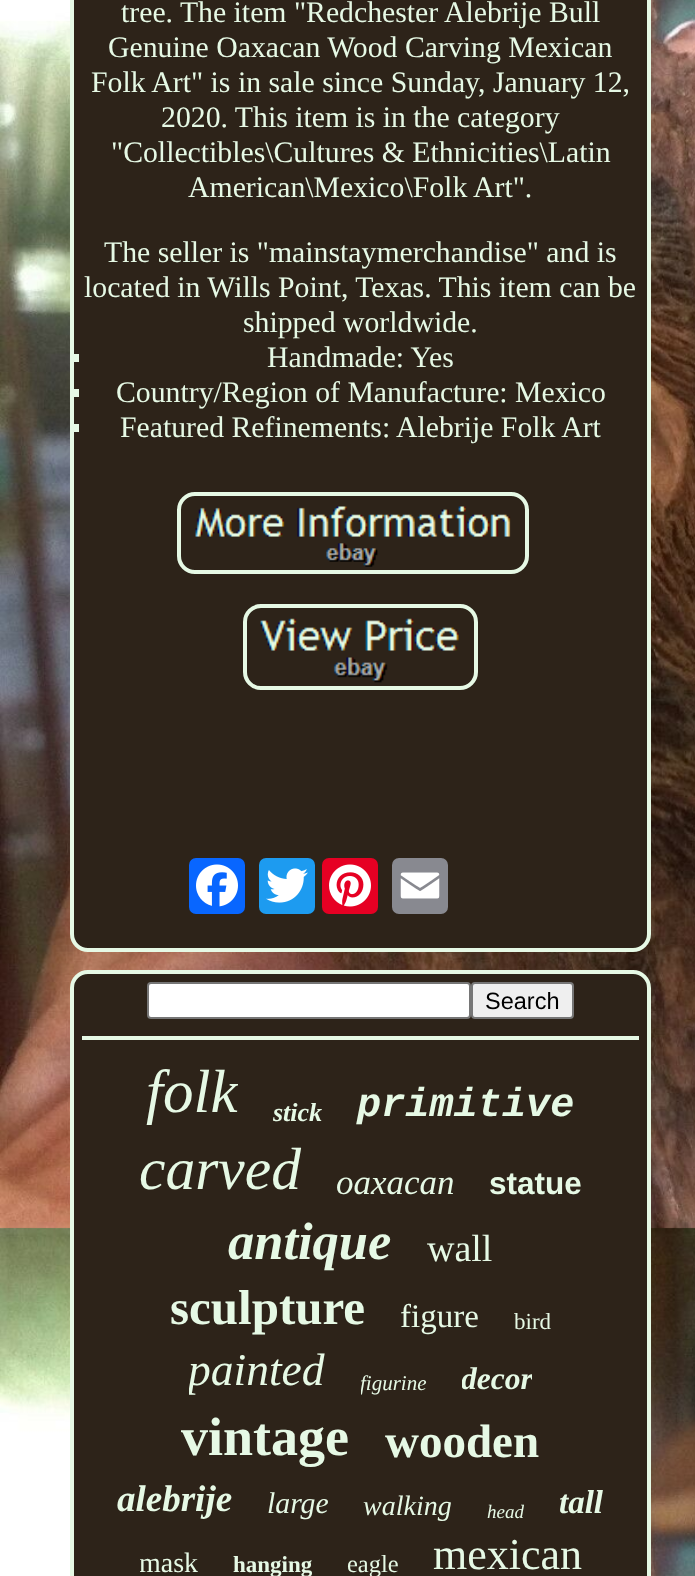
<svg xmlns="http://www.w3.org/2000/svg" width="695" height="1576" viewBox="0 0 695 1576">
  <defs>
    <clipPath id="clip1"><rect x="145" y="1057" width="93" height="70"/></clipPath>
    <clipPath id="clip2"><rect x="273" y="1097" width="49" height="30"/></clipPath>
    <clipPath id="clip3"><rect x="189" y="1344" width="137" height="53"/></clipPath>
    <clipPath id="clip4"><rect x="361" y="1370" width="66" height="27"/></clipPath>
    <clipPath id="clip5"><rect x="462" y="1360" width="70" height="37"/></clipPath>
    <clipPath id="clip6"><rect x="140" y="1547" width="58" height="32"/></clipPath>
  </defs>
  <rect width="100%" height="100%" fill="#ffffff"/>
  <image x="0" y="0" width="695" height="1576" href="img1.png"/>
  <rect x="72" y="-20" width="577" height="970" rx="16" fill="#2d2319" stroke="#e6f9e5" stroke-width="4"/>
  <text x="121" y="22" font-family="Liberation Serif" font-size="29.75" fill="#e6f9e5">tree. The item "Redchester Alebrije Bull</text>
  <text x="108" y="57" font-family="Liberation Serif" font-size="29.75" fill="#e6f9e5">Genuine Oaxacan Wood Carving Mexican</text>
  <text x="91" y="92" font-family="Liberation Serif" font-size="29.75" fill="#e6f9e5">Folk Art" is in sale since Sunday, January 12,</text>
  <text x="161" y="127" font-family="Liberation Serif" font-size="29.75" fill="#e6f9e5">2020. This item is in the category</text>
  <text x="111" y="162" font-family="Liberation Serif" font-size="29.75" fill="#e6f9e5">"Collectibles\Cultures &amp; Ethnicities\Latin</text>
  <text x="188" y="197" font-family="Liberation Serif" font-size="29.75" fill="#e6f9e5">American\Mexico\Folk Art".</text>
  <text x="104" y="262" font-family="Liberation Serif" font-size="29.75" fill="#e6f9e5">The seller is "mainstaymerchandise" and is</text>
  <text x="84" y="297" font-family="Liberation Serif" font-size="29.75" fill="#e6f9e5">located in Wills Point, Texas. This item can be</text>
  <text x="243" y="332" font-family="Liberation Serif" font-size="29.75" fill="#e6f9e5">shipped worldwide.</text>
  <rect x="70" y="354" width="9" height="8" fill="#e6f9e5"/>
  <text x="267" y="367" font-family="Liberation Serif" font-size="29.75" fill="#e6f9e5">Handmade: Yes</text>
  <rect x="70" y="389" width="9" height="8" fill="#e6f9e5"/>
  <text x="116" y="402" font-family="Liberation Serif" font-size="29.75" fill="#e6f9e5">Country/Region of Manufacture: Mexico</text>
  <rect x="70" y="424" width="9" height="8" fill="#e6f9e5"/>
  <text x="120" y="437" font-family="Liberation Serif" font-size="29.75" fill="#e6f9e5">Featured Refinements: Alebrije Folk Art</text>
  <rect x="179" y="494" width="348" height="78" rx="16" fill="none" stroke="#e6f9e5" stroke-width="4"/>
  <image x="195" y="506" width="316" height="61" href="img2.png"/>
  <rect x="245" y="606" width="231" height="82" rx="16" fill="none" stroke="#e6f9e5" stroke-width="4"/>
  <image x="260" y="618" width="199" height="65" href="img3.png"/>
  <rect x="189" y="858" width="56" height="56" rx="7" fill="#0866ff"/>
  <image x="196" y="864" width="42" height="43" href="img4.png"/>
  <rect x="259" y="858" width="56" height="56" rx="7" fill="#1d9bf0"/>
  <image x="266" y="868" width="42" height="35" href="img5.png"/>
  <rect x="322" y="858" width="56" height="56" rx="7" fill="#e60023"/>
  <image x="329" y="864" width="42" height="43" href="img6.png"/>
  <rect x="392" y="858" width="56" height="56" rx="7" fill="#888990"/>
  <image x="400" y="872" width="40" height="27" href="img7.png"/>
  <rect x="72" y="972" width="577" height="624" rx="16" fill="#2d2319" stroke="#e6f9e5" stroke-width="4"/>
  <rect x="148" y="983" width="322" height="35" rx="3" fill="#ffffff" stroke="#767676" stroke-width="2"/>
  <rect x="472" y="983" width="101" height="35" rx="3" fill="#efefef" stroke="#767676" stroke-width="2"/>
  <text x="485" y="1009" font-family="Liberation Sans" font-size="23.5" fill="#000000">Search</text>
  <rect x="82" y="1036" width="557" height="4" fill="#e6f9e5"/>
  <g clip-path="url(#clip1)">
    <text x="146" y="1112" font-family="Liberation Serif" font-size="61" font-style="italic" fill="#e6f9e5">folk</text>
  </g>
  <g clip-path="url(#clip2)">
    <text x="273" y="1121" font-family="Liberation Serif" font-size="26" font-weight="bold" font-style="italic" fill="#e6f9e5">stick</text>
  </g>
  <text x="357" y="1116" font-family="Liberation Mono" font-size="40.25" font-weight="bold" font-style="italic" fill="#e6f9e5">primitive</text>
  <text x="139" y="1189" font-family="Liberation Serif" font-size="59.5" font-style="italic" fill="#e6f9e5">carved</text>
  <text x="336" y="1194" font-family="Liberation Serif" font-size="35" font-style="italic" fill="#e6f9e5">oaxacan</text>
  <text x="489" y="1194" font-family="Liberation Sans" font-size="31.5" font-weight="bold" fill="#e6f9e5">statue</text>
  <text x="228" y="1259" font-family="Liberation Serif" font-size="52.5" font-weight="bold" font-style="italic" fill="#e6f9e5">antique</text>
  <text x="427" y="1261" font-family="Liberation Serif" font-size="38" fill="#e6f9e5">wall</text>
  <text x="170" y="1324" font-family="Liberation Serif" font-size="49" font-weight="bold" fill="#e6f9e5">sculpture</text>
  <text x="400" y="1327" font-family="Liberation Serif" font-size="33" fill="#e6f9e5">figure</text>
  <text x="514" y="1329" font-family="Liberation Serif" font-size="23" fill="#e6f9e5">bird</text>
  <g clip-path="url(#clip3)">
    <text x="188" y="1385" font-family="Liberation Serif" font-size="45.5" font-style="italic" fill="#e6f9e5">painted</text>
  </g>
  <g clip-path="url(#clip4)">
    <text x="360" y="1390" font-family="Liberation Serif" font-size="21" font-style="italic" fill="#e6f9e5">figurine</text>
  </g>
  <g clip-path="url(#clip5)">
    <text x="461" y="1389" font-family="Liberation Serif" font-size="31.5" font-weight="bold" font-style="italic" fill="#e6f9e5">decor</text>
  </g>
  <text x="181" y="1455" font-family="Liberation Serif" font-size="54" font-weight="bold" fill="#e6f9e5">vintage</text>
  <text x="385" y="1457" font-family="Liberation Serif" font-size="47" font-weight="bold" fill="#e6f9e5">wooden</text>
  <text x="117" y="1511" font-family="Liberation Serif" font-size="37" font-weight="bold" font-style="italic" fill="#e6f9e5">alebrije</text>
  <text x="267" y="1513" font-family="Liberation Serif" font-size="29.75" font-style="italic" fill="#e6f9e5">large</text>
  <text x="363" y="1515" font-family="Liberation Serif" font-size="28" font-style="italic" fill="#e6f9e5">walking</text>
  <text x="487" y="1518" font-family="Liberation Serif" font-size="19" font-style="italic" fill="#e6f9e5">head</text>
  <text x="559" y="1513" font-family="Liberation Serif" font-size="33" font-weight="bold" font-style="italic" fill="#e6f9e5">tall</text>
  <g clip-path="url(#clip6)">
    <text x="139" y="1572" font-family="Liberation Serif" font-size="28" fill="#e6f9e5">mask</text>
  </g>
  <text x="233" y="1572" font-family="Liberation Serif" font-size="23" font-weight="bold" fill="#e6f9e5">hanging</text>
  <text x="347" y="1572" font-family="Liberation Serif" font-size="24.5" fill="#e6f9e5">eagle</text>
  <text x="433" y="1569" font-family="Liberation Serif" font-size="44" fill="#e6f9e5">mexican</text>
</svg>
